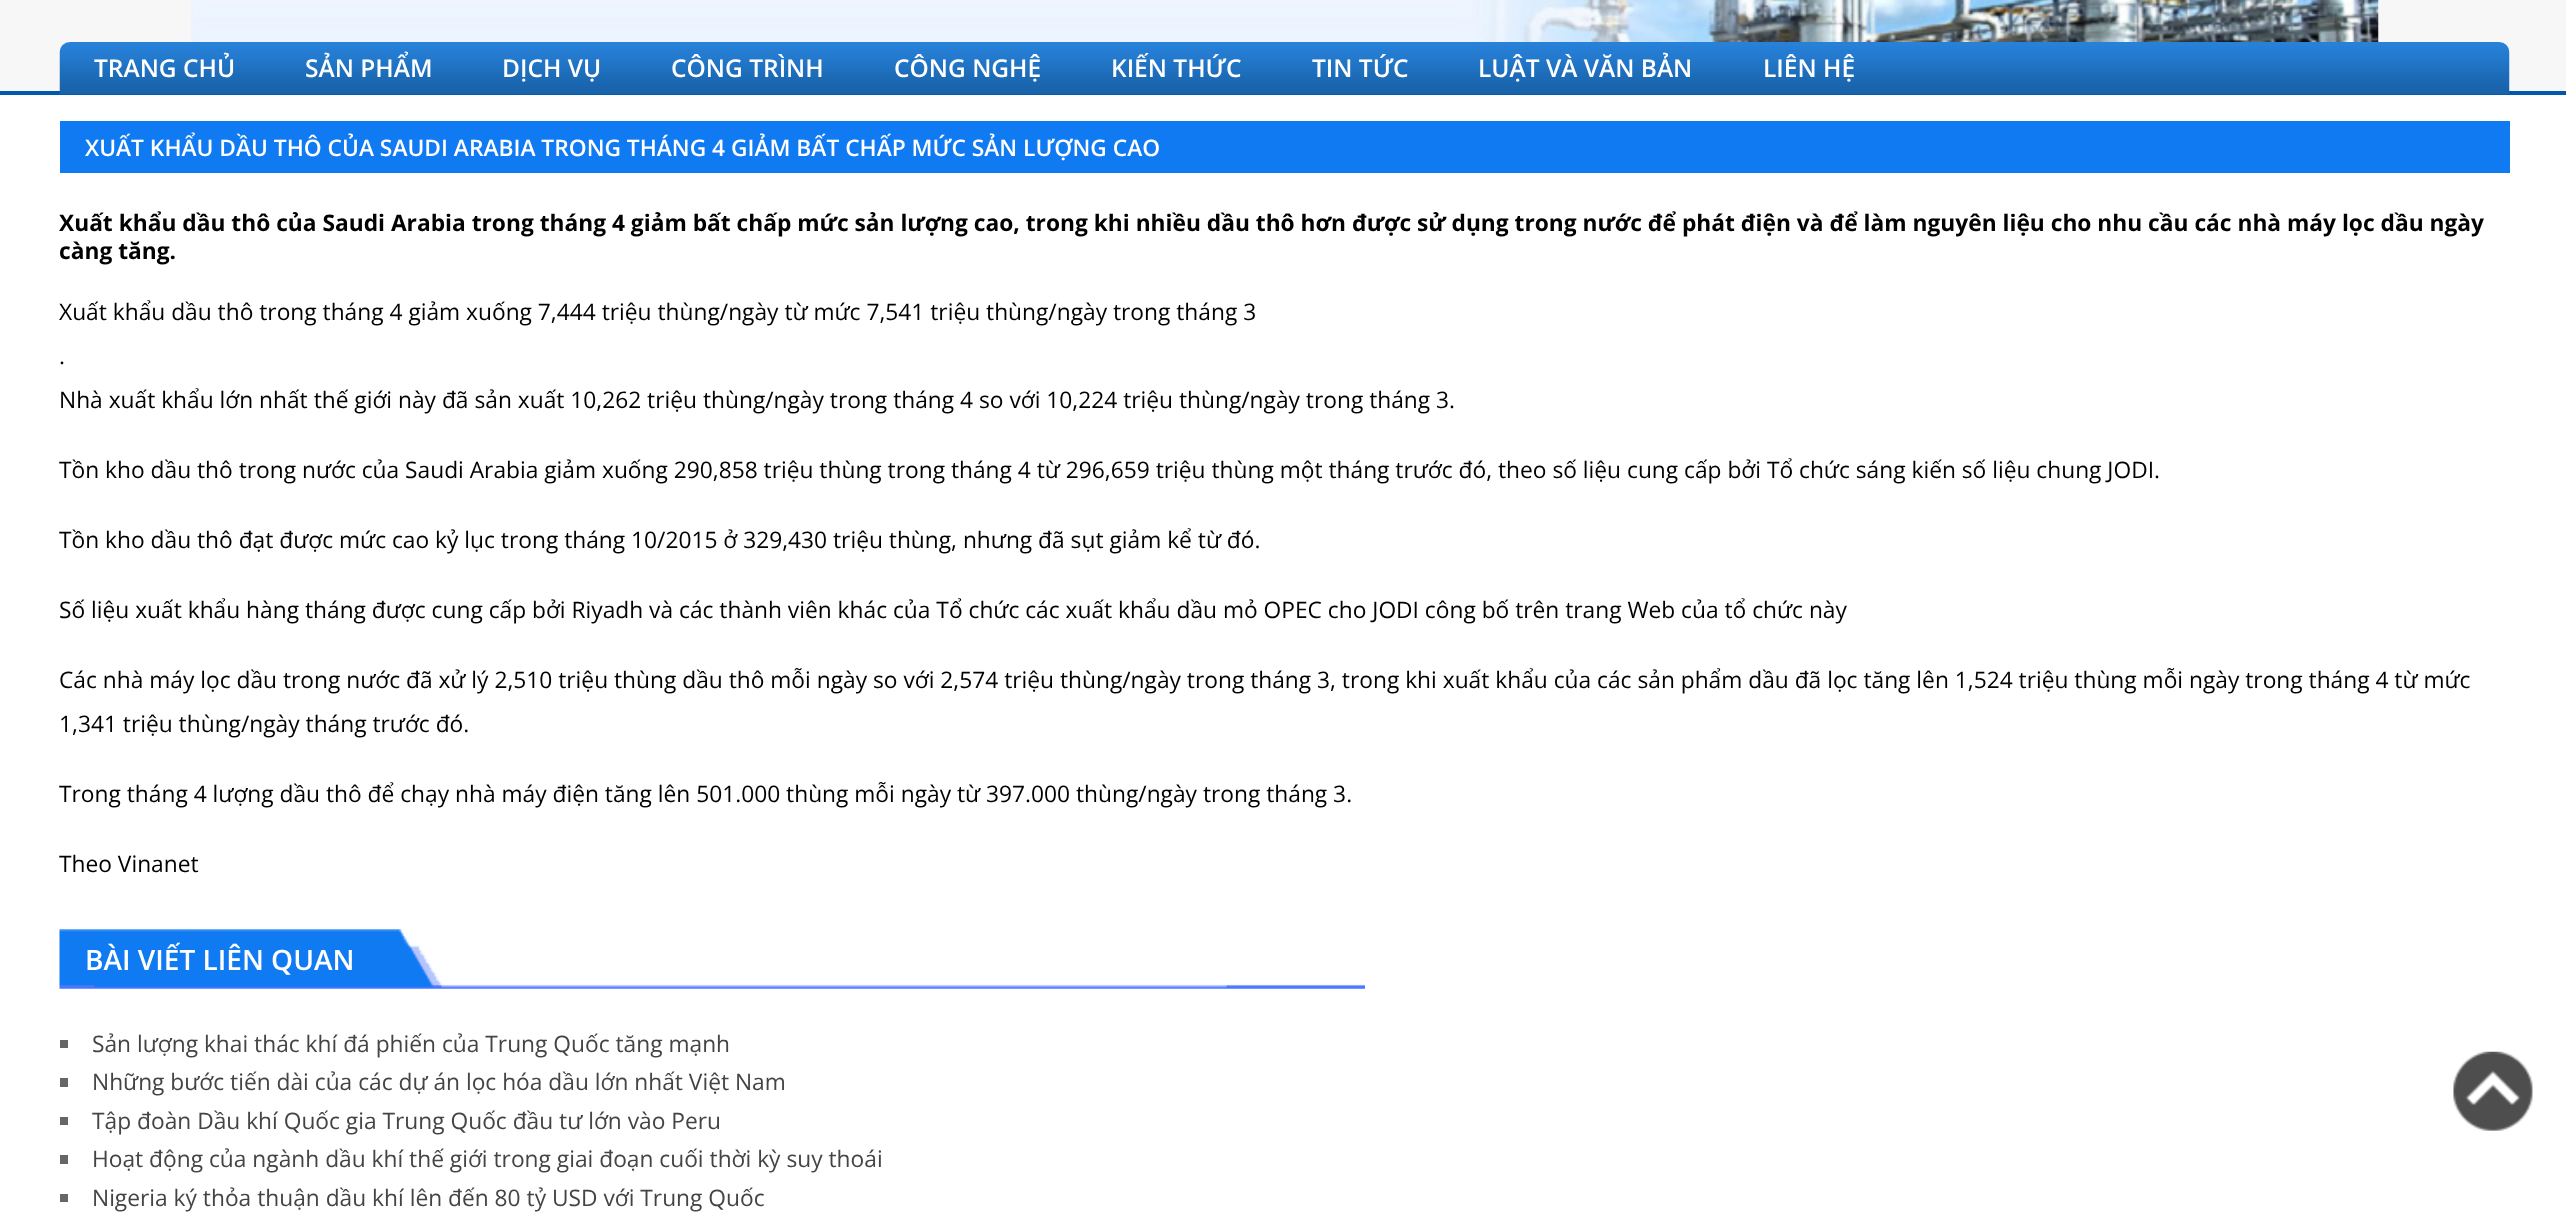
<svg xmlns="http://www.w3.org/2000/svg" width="2566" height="1218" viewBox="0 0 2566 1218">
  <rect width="100%" height="100%" fill="#ffffff"/>
  <rect x="0" y="0" width="2566" height="91" fill="#f7f7f7"/>
  <image x="191" y="0" width="2188" height="42" href="img1.png"/>
  <rect x="0" y="91" width="2566" height="4" fill="#0058ae"/>
  <image x="59" y="42" width="2451" height="53" href="img2.png"/>
  <text x="94" y="77" font-family="Open Sans" font-size="24.5" font-weight="600" fill="#ffffff">TRANG CHỦ</text>
  <text x="305" y="77" font-family="Open Sans" font-size="24.5" font-weight="600" fill="#ffffff">SẢN PHẨM</text>
  <text x="502" y="77" font-family="Open Sans" font-size="24.5" font-weight="600" fill="#ffffff">DỊCH VỤ</text>
  <text x="671" y="77" font-family="Open Sans" font-size="24.5" font-weight="600" fill="#ffffff">CÔNG TRÌNH</text>
  <text x="894" y="77" font-family="Open Sans" font-size="24.5" font-weight="600" fill="#ffffff">CÔNG NGHỆ</text>
  <text x="1111" y="77" font-family="Open Sans" font-size="24.5" font-weight="600" fill="#ffffff">KIẾN THỨC</text>
  <text x="1312" y="77" font-family="Open Sans" font-size="24.5" font-weight="600" fill="#ffffff">TIN TỨC</text>
  <text x="1478" y="77" font-family="Open Sans" font-size="24.5" font-weight="600" fill="#ffffff">LUẬT VÀ VĂN BẢN</text>
  <text x="1763" y="77" font-family="Open Sans" font-size="24.5" font-weight="600" fill="#ffffff">LIÊN HỆ</text>
  <rect x="60" y="121" width="2450" height="52" fill="#107af3"/>
  <text x="85" y="156" font-family="Open Sans" font-size="22.75" font-weight="600" fill="#ffffff">XUẤT KHẨU DẦU THÔ CỦA SAUDI ARABIA TRONG THÁNG 4 GIẢM BẤT CHẤP MỨC SẢN LƯỢNG CAO</text>
  <text x="59" y="231" font-family="Open Sans" font-size="22.75" font-weight="bold" fill="#000000">Xuất khẩu dầu thô của Saudi Arabia trong tháng 4 giảm bất chấp mức sản lượng cao, trong khi nhiều dầu thô hơn được sử dụng trong nước để phát điện và để làm nguyên liệu cho nhu cầu các nhà máy lọc dầu ngày</text>
  <text x="59" y="259" font-family="Open Sans" font-size="22.75" font-weight="bold" fill="#000000">càng tăng.</text>
  <text x="59" y="320" font-family="Open Sans" font-size="22.75" fill="#000000">Xuất khẩu dầu thô trong tháng 4 giảm xuống 7,444 triệu thùng/ngày từ mức 7,541 triệu thùng/ngày trong tháng 3</text>
  <text x="59" y="364" font-family="Open Sans" font-size="22.75" fill="#000000">.</text>
  <text x="59" y="408" font-family="Open Sans" font-size="22.75" fill="#000000">Nhà xuất khẩu lớn nhất thế giới này đã sản xuất 10,262 triệu thùng/ngày trong tháng 4 so với 10,224 triệu thùng/ngày trong tháng 3.</text>
  <text x="59" y="478" font-family="Open Sans" font-size="22.75" fill="#000000">Tồn kho dầu thô trong nước của Saudi Arabia giảm xuống 290,858 triệu thùng trong tháng 4 từ 296,659 triệu thùng một tháng trước đó, theo số liệu cung cấp bởi Tổ chức sáng kiến số liệu chung JODI.</text>
  <text x="59" y="548" font-family="Open Sans" font-size="22.75" fill="#000000">Tồn kho dầu thô đạt được mức cao kỷ lục trong tháng 10/2015 ở 329,430 triệu thùng, nhưng đã sụt giảm kể từ đó.</text>
  <text x="59" y="618" font-family="Open Sans" font-size="22.75" fill="#000000">Số liệu xuất khẩu hàng tháng được cung cấp bởi Riyadh và các thành viên khác của Tổ chức các xuất khẩu dầu mỏ OPEC cho JODI công bố trên trang Web của tổ chức này</text>
  <text x="59" y="688" font-family="Open Sans" font-size="22.75" fill="#000000">Các nhà máy lọc dầu trong nước đã xử lý 2,510 triệu thùng dầu thô mỗi ngày so với 2,574 triệu thùng/ngày trong tháng 3, trong khi xuất khẩu của các sản phẩm dầu đã lọc tăng lên 1,524 triệu thùng mỗi ngày trong tháng 4 từ mức</text>
  <text x="59" y="732" font-family="Open Sans" font-size="22.75" fill="#000000">1,341 triệu thùng/ngày tháng trước đó.</text>
  <text x="59" y="802" font-family="Open Sans" font-size="22.75" fill="#000000">Trong tháng 4 lượng dầu thô để chạy nhà máy điện tăng lên 501.000 thùng mỗi ngày từ 397.000 thùng/ngày trong tháng 3.</text>
  <text x="59" y="872" font-family="Open Sans" font-size="22.75" fill="#000000">Theo Vinanet</text>
  <image x="59" y="929" width="1306" height="60" href="img3.png"/>
  <text x="85" y="970" font-family="Open Sans" font-size="28" font-weight="600" fill="#ffffff">BÀI VIẾT LIÊN QUAN</text>
  <rect x="60" y="1040" width="8" height="8" fill="#666666"/>
  <text x="92" y="1052" font-family="Open Sans" font-size="22.75" fill="#444444">Sản lượng khai thác khí đá phiến của Trung Quốc tăng mạnh</text>
  <rect x="60" y="1078" width="8" height="9" fill="#666666"/>
  <text x="92" y="1090" font-family="Open Sans" font-size="22.75" fill="#444444">Những bước tiến dài của các dự án lọc hóa dầu lớn nhất Việt Nam</text>
  <rect x="60" y="1117" width="8" height="8" fill="#666666"/>
  <text x="92" y="1129" font-family="Open Sans" font-size="22.75" fill="#444444">Tập đoàn Dầu khí Quốc gia Trung Quốc đầu tư lớn vào Peru</text>
  <rect x="60" y="1155" width="8" height="9" fill="#666666"/>
  <text x="92" y="1167" font-family="Open Sans" font-size="22.75" fill="#444444">Hoạt động của ngành dầu khí thế giới trong giai đoạn cuối thời kỳ suy thoái</text>
  <rect x="60" y="1194" width="8" height="8" fill="#666666"/>
  <text x="92" y="1206" font-family="Open Sans" font-size="22.75" fill="#444444">Nigeria ký thỏa thuận dầu khí lên đến 80 tỷ USD với Trung Quốc</text>
  <image x="2453" y="1051" width="80" height="80" href="img4.png"/>
</svg>
